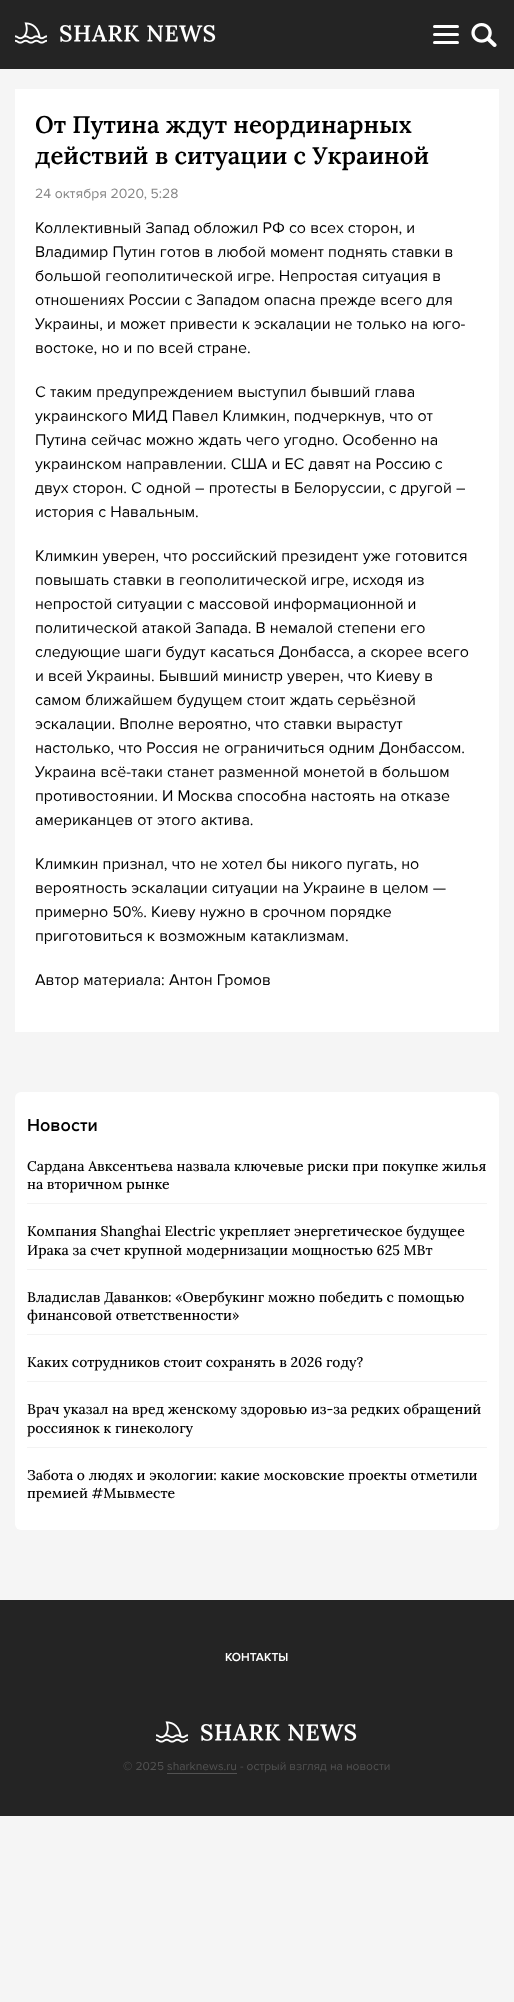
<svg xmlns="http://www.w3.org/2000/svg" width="514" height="2002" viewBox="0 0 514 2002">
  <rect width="100%" height="100%" fill="#f5f5f5"/>
  <rect x="0" y="0" width="514" height="69" fill="#242424"/>
  <image x="15" y="22" width="201" height="22" href="img1.png"/>
  <rect x="433" y="33" width="26" height="3" rx="1.5" fill="#ffffff"/>
  <rect x="433" y="25" width="26" height="3" rx="1.5" fill="#ffffff"/>
  <rect x="433" y="41" width="26" height="3" rx="1.5" fill="#ffffff"/>
  <image x="471" y="23" width="26" height="24" href="img2.png"/>
  <rect x="15" y="89" width="484" height="943" fill="#ffffff"/>
  <text x="35" y="133" font-family="Lora" font-size="24" font-weight="600" fill="#000000">От Путина ждут неординарных</text>
  <text x="35" y="164" font-family="Lora" font-size="24" font-weight="600" fill="#000000">действий в ситуации с Украиной</text>
  <text x="35" y="198" font-family="Proxima Nova" font-size="14" fill="#868686">24 октября 2020, 5:28</text>
  <text x="35" y="233" font-family="Proxima Nova" font-size="16" fill="#000000">Коллективный Запад обложил РФ со всех сторон, и</text>
  <text x="35" y="257" font-family="Proxima Nova" font-size="16" fill="#000000">Владимир Путин готов в любой момент поднять ставки в</text>
  <text x="35" y="281" font-family="Proxima Nova" font-size="16" fill="#000000">большой геополитической игре. Непростая ситуация в</text>
  <text x="35" y="305" font-family="Proxima Nova" font-size="16" fill="#000000">отношениях России с Западом опасна прежде всего для</text>
  <text x="35" y="329" font-family="Proxima Nova" font-size="16" fill="#000000">Украины, и может привести к эскалации не только на юго-</text>
  <text x="35" y="353" font-family="Proxima Nova" font-size="16" fill="#000000">востоке, но и по всей стране.</text>
  <text x="35" y="397" font-family="Proxima Nova" font-size="16" fill="#000000">С таким предупреждением выступил бывший глава</text>
  <text x="35" y="421" font-family="Proxima Nova" font-size="16" fill="#000000">украинского МИД Павел Климкин, подчеркнув, что от</text>
  <text x="35" y="445" font-family="Proxima Nova" font-size="16" fill="#000000">Путина сейчас можно ждать чего угодно. Особенно на</text>
  <text x="35" y="469" font-family="Proxima Nova" font-size="16" fill="#000000">украинском направлении. США и ЕС давят на Россию с</text>
  <text x="35" y="493" font-family="Proxima Nova" font-size="16" fill="#000000">двух сторон. С одной – протесты в Белоруссии, с другой –</text>
  <text x="35" y="517" font-family="Proxima Nova" font-size="16" fill="#000000">история с Навальным.</text>
  <text x="35" y="561" font-family="Proxima Nova" font-size="16" fill="#000000">Климкин уверен, что российский президент уже готовится</text>
  <text x="35" y="585" font-family="Proxima Nova" font-size="16" fill="#000000">повышать ставки в геополитической игре, исходя из</text>
  <text x="35" y="609" font-family="Proxima Nova" font-size="16" fill="#000000">непростой ситуации с массовой информационной и</text>
  <text x="35" y="633" font-family="Proxima Nova" font-size="16" fill="#000000">политической атакой Запада. В немалой степени его</text>
  <text x="35" y="657" font-family="Proxima Nova" font-size="16" fill="#000000">следующие шаги будут касаться Донбасса, а скорее всего</text>
  <text x="35" y="681" font-family="Proxima Nova" font-size="16" fill="#000000">и всей Украины. Бывший министр уверен, что Киеву в</text>
  <text x="35" y="705" font-family="Proxima Nova" font-size="16" fill="#000000">самом ближайшем будущем стоит ждать серьёзной</text>
  <text x="35" y="729" font-family="Proxima Nova" font-size="16" fill="#000000">эскалации. Вполне вероятно, что ставки вырастут</text>
  <text x="35" y="753" font-family="Proxima Nova" font-size="16" fill="#000000">настолько, что Россия не ограничиться одним Донбассом.</text>
  <text x="35" y="777" font-family="Proxima Nova" font-size="16" fill="#000000">Украина всё-таки станет разменной монетой в большом</text>
  <text x="35" y="801" font-family="Proxima Nova" font-size="16" fill="#000000">противостоянии. И Москва способна настоять на отказе</text>
  <text x="35" y="825" font-family="Proxima Nova" font-size="16" fill="#000000">американцев от этого актива.</text>
  <text x="35" y="869" font-family="Proxima Nova" font-size="16" fill="#000000">Климкин признал, что не хотел бы никого пугать, но</text>
  <text x="35" y="893" font-family="Proxima Nova" font-size="16" fill="#000000">вероятность эскалации ситуации на Украине в целом —</text>
  <text x="35" y="917" font-family="Proxima Nova" font-size="16" fill="#000000">примерно 50%. Киеву нужно в срочном порядке</text>
  <text x="35" y="941" font-family="Proxima Nova" font-size="16" fill="#000000">приготовиться к возможным катаклизмам.</text>
  <text x="35" y="985" font-family="Proxima Nova" font-size="16" fill="#000000">Автор материала: Антон Громов</text>
  <rect x="15" y="1092" width="484" height="438" rx="6" fill="#ffffff"/>
  <text x="27" y="1131" font-family="Proxima Nova" font-size="18" font-weight="600" fill="#000000">Новости</text>
  <rect x="27" y="1203" width="460" height="1" fill="#f3f3f3"/>
  <text x="27" y="1171" font-family="Lora" font-size="14" font-weight="500" fill="#000000">Сардана Авксентьева назвала ключевые риски при покупке жилья</text>
  <text x="27" y="1189" font-family="Lora" font-size="14" font-weight="500" fill="#000000">на вторичном рынке</text>
  <rect x="27" y="1269" width="460" height="1" fill="#f3f3f3"/>
  <text x="27" y="1236" font-family="Lora" font-size="14" font-weight="500" fill="#000000">Компания Shanghai Electric укрепляет энергетическое будущее</text>
  <text x="27" y="1255" font-family="Lora" font-size="14" font-weight="500" fill="#000000">Ирака за счет крупной модернизации мощностью 625 МВт</text>
  <rect x="27" y="1334" width="460" height="1" fill="#f3f3f3"/>
  <text x="27" y="1302" font-family="Lora" font-size="14" font-weight="500" fill="#000000">Владислав Даванков: «Овербукинг можно победить с помощью</text>
  <text x="27" y="1320" font-family="Lora" font-size="14" font-weight="500" fill="#000000">финансовой ответственности»</text>
  <rect x="27" y="1381" width="460" height="1" fill="#f3f3f3"/>
  <text x="27" y="1367" font-family="Lora" font-size="14" font-weight="500" fill="#000000">Каких сотрудников стоит сохранять в 2026 году?</text>
  <rect x="27" y="1447" width="460" height="1" fill="#f3f3f3"/>
  <text x="27" y="1414" font-family="Lora" font-size="14" font-weight="500" fill="#000000">Врач указал на вред женскому здоровью из-за редких обращений</text>
  <text x="27" y="1433" font-family="Lora" font-size="14" font-weight="500" fill="#000000">россиянок к гинекологу</text>
  <text x="27" y="1480" font-family="Lora" font-size="14" font-weight="500" fill="#000000">Забота о людях и экологии: какие московские проекты отметили</text>
  <text x="27" y="1498" font-family="Lora" font-size="14" font-weight="500" fill="#000000">премией #Мывместе</text>
  <rect x="0" y="1600" width="514" height="216" fill="#242424"/>
  <text x="225" y="1661" font-family="Proxima Nova" font-size="12" font-weight="600" fill="#ffffff">КОНТАКТЫ</text>
  <image x="156" y="1721" width="201" height="22" href="img1.png"/>
  <text x="123" y="1770" font-family="Proxima Nova" font-size="12" fill="#525252">© 2025 sharknews.ru - острый взгляд на новости</text>
  <rect x="167" y="1773" width="70" height="1" fill="#525252"/>
</svg>
